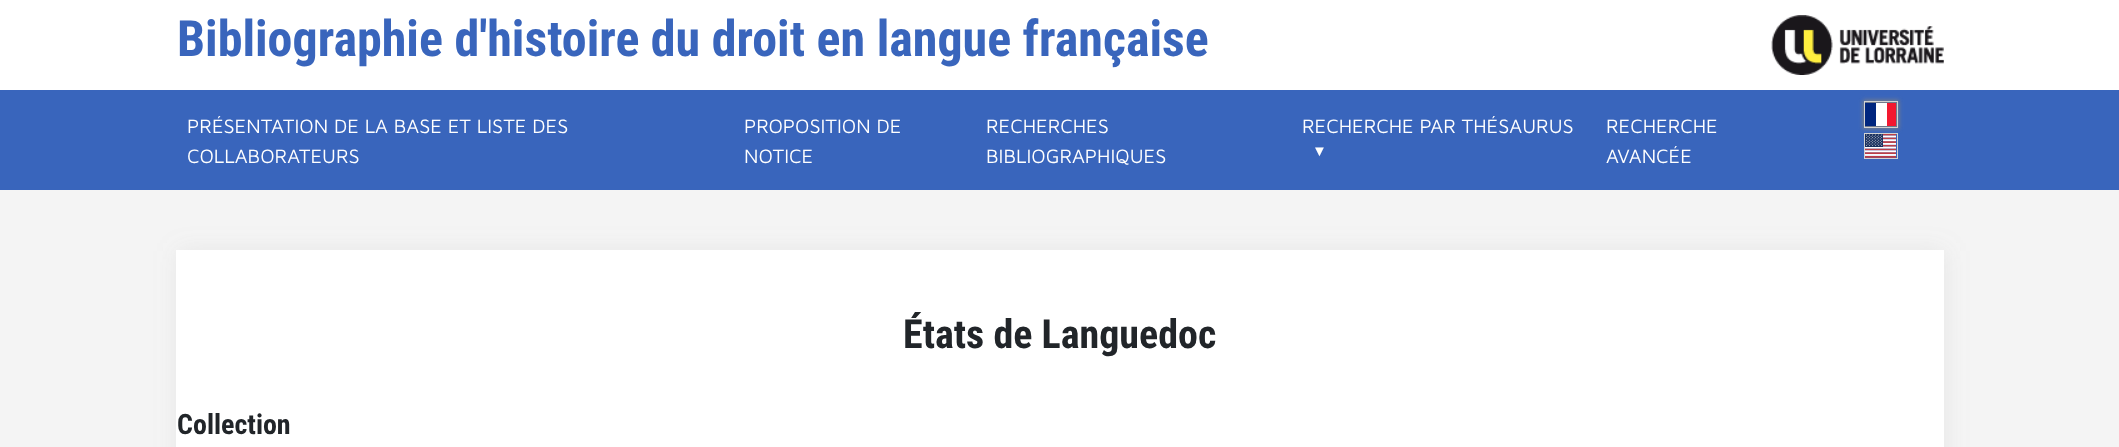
<svg xmlns="http://www.w3.org/2000/svg" width="2119" height="447" viewBox="0 0 2119 447">
  <defs>
    <filter id="blur1" x="-50%" y="-200%" width="200%" height="500%"><feGaussianBlur stdDeviation="2"/></filter>
    <filter id="blur2" x="-50%" y="-200%" width="200%" height="500%"><feGaussianBlur stdDeviation="12.5"/></filter>
  </defs>
  <rect width="100%" height="100%" fill="#f4f4f4"/>
  <rect x="0" y="0" width="2119" height="90" fill="#ffffff"/>
  <text x="177" y="56" font-family="Roboto Condensed" font-size="50" font-weight="bold" fill="#3965bc">Bibliographie d'histoire du droit en langue française</text>
  <image x="1771" y="15" width="173" height="60" href="img1.png"/>
  <rect x="0" y="90" width="2119" height="100" fill="#3965bc"/>
  <text x="187" y="133" font-family="Maven Pro" font-size="20" fill="#ffffff">PRÉSENTATION DE LA BASE ET LISTE DES</text>
  <text x="187" y="163" font-family="Maven Pro" font-size="20" fill="#ffffff">COLLABORATEURS</text>
  <text x="744" y="133" font-family="Maven Pro" font-size="20" fill="#ffffff">PROPOSITION DE</text>
  <text x="744" y="163" font-family="Maven Pro" font-size="20" fill="#ffffff">NOTICE</text>
  <text x="986" y="133" font-family="Maven Pro" font-size="20" fill="#ffffff">RECHERCHES</text>
  <text x="986" y="163" font-family="Maven Pro" font-size="20" fill="#ffffff">BIBLIOGRAPHIQUES</text>
  <text x="1302" y="133" font-family="Maven Pro" font-size="20" fill="#ffffff">RECHERCHE PAR THÉSAURUS</text>
  <text x="1312" y="156" font-family="Liberation Serif" font-size="15" font-weight="bold" fill="#ffffff">▼</text>
  <text x="1606" y="133" font-family="Maven Pro" font-size="20" fill="#ffffff">RECHERCHE</text>
  <text x="1606" y="163" font-family="Maven Pro" font-size="20" fill="#ffffff">AVANCÉE</text>
  <rect x="1863" y="100" width="36" height="29" fill="#808080" fill-opacity="0.9" filter="url(#blur1)"/>
  <rect x="1876" y="103" width="11" height="23" fill="#ffffff"/>
  <rect x="1865" y="103" width="11" height="23" fill="#00267f"/>
  <rect x="1887" y="103" width="9" height="23" fill="#f31830"/>
  <rect x="1864.5" y="101.5" width="33" height="26" fill="none" stroke="#d3d3d3"/>
  <image x="1865" y="134" width="31" height="24" href="img2.png"/>
  <rect x="1864.5" y="133.5" width="33" height="25" fill="none" stroke="#d3d3d3"/>
  <rect x="178" y="251" width="1767" height="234" fill="#a2a2a2" fill-opacity="0.17" filter="url(#blur2)"/>
  <rect x="176" y="250" width="1768" height="197" fill="#ffffff"/>
  <text x="903" y="348" font-family="Roboto Condensed" font-size="40" font-weight="bold" fill="#212529">États de Languedoc</text>
  <text x="177" y="434" font-family="Roboto Condensed" font-size="28" font-weight="bold" fill="#212529">Collection</text>
</svg>
